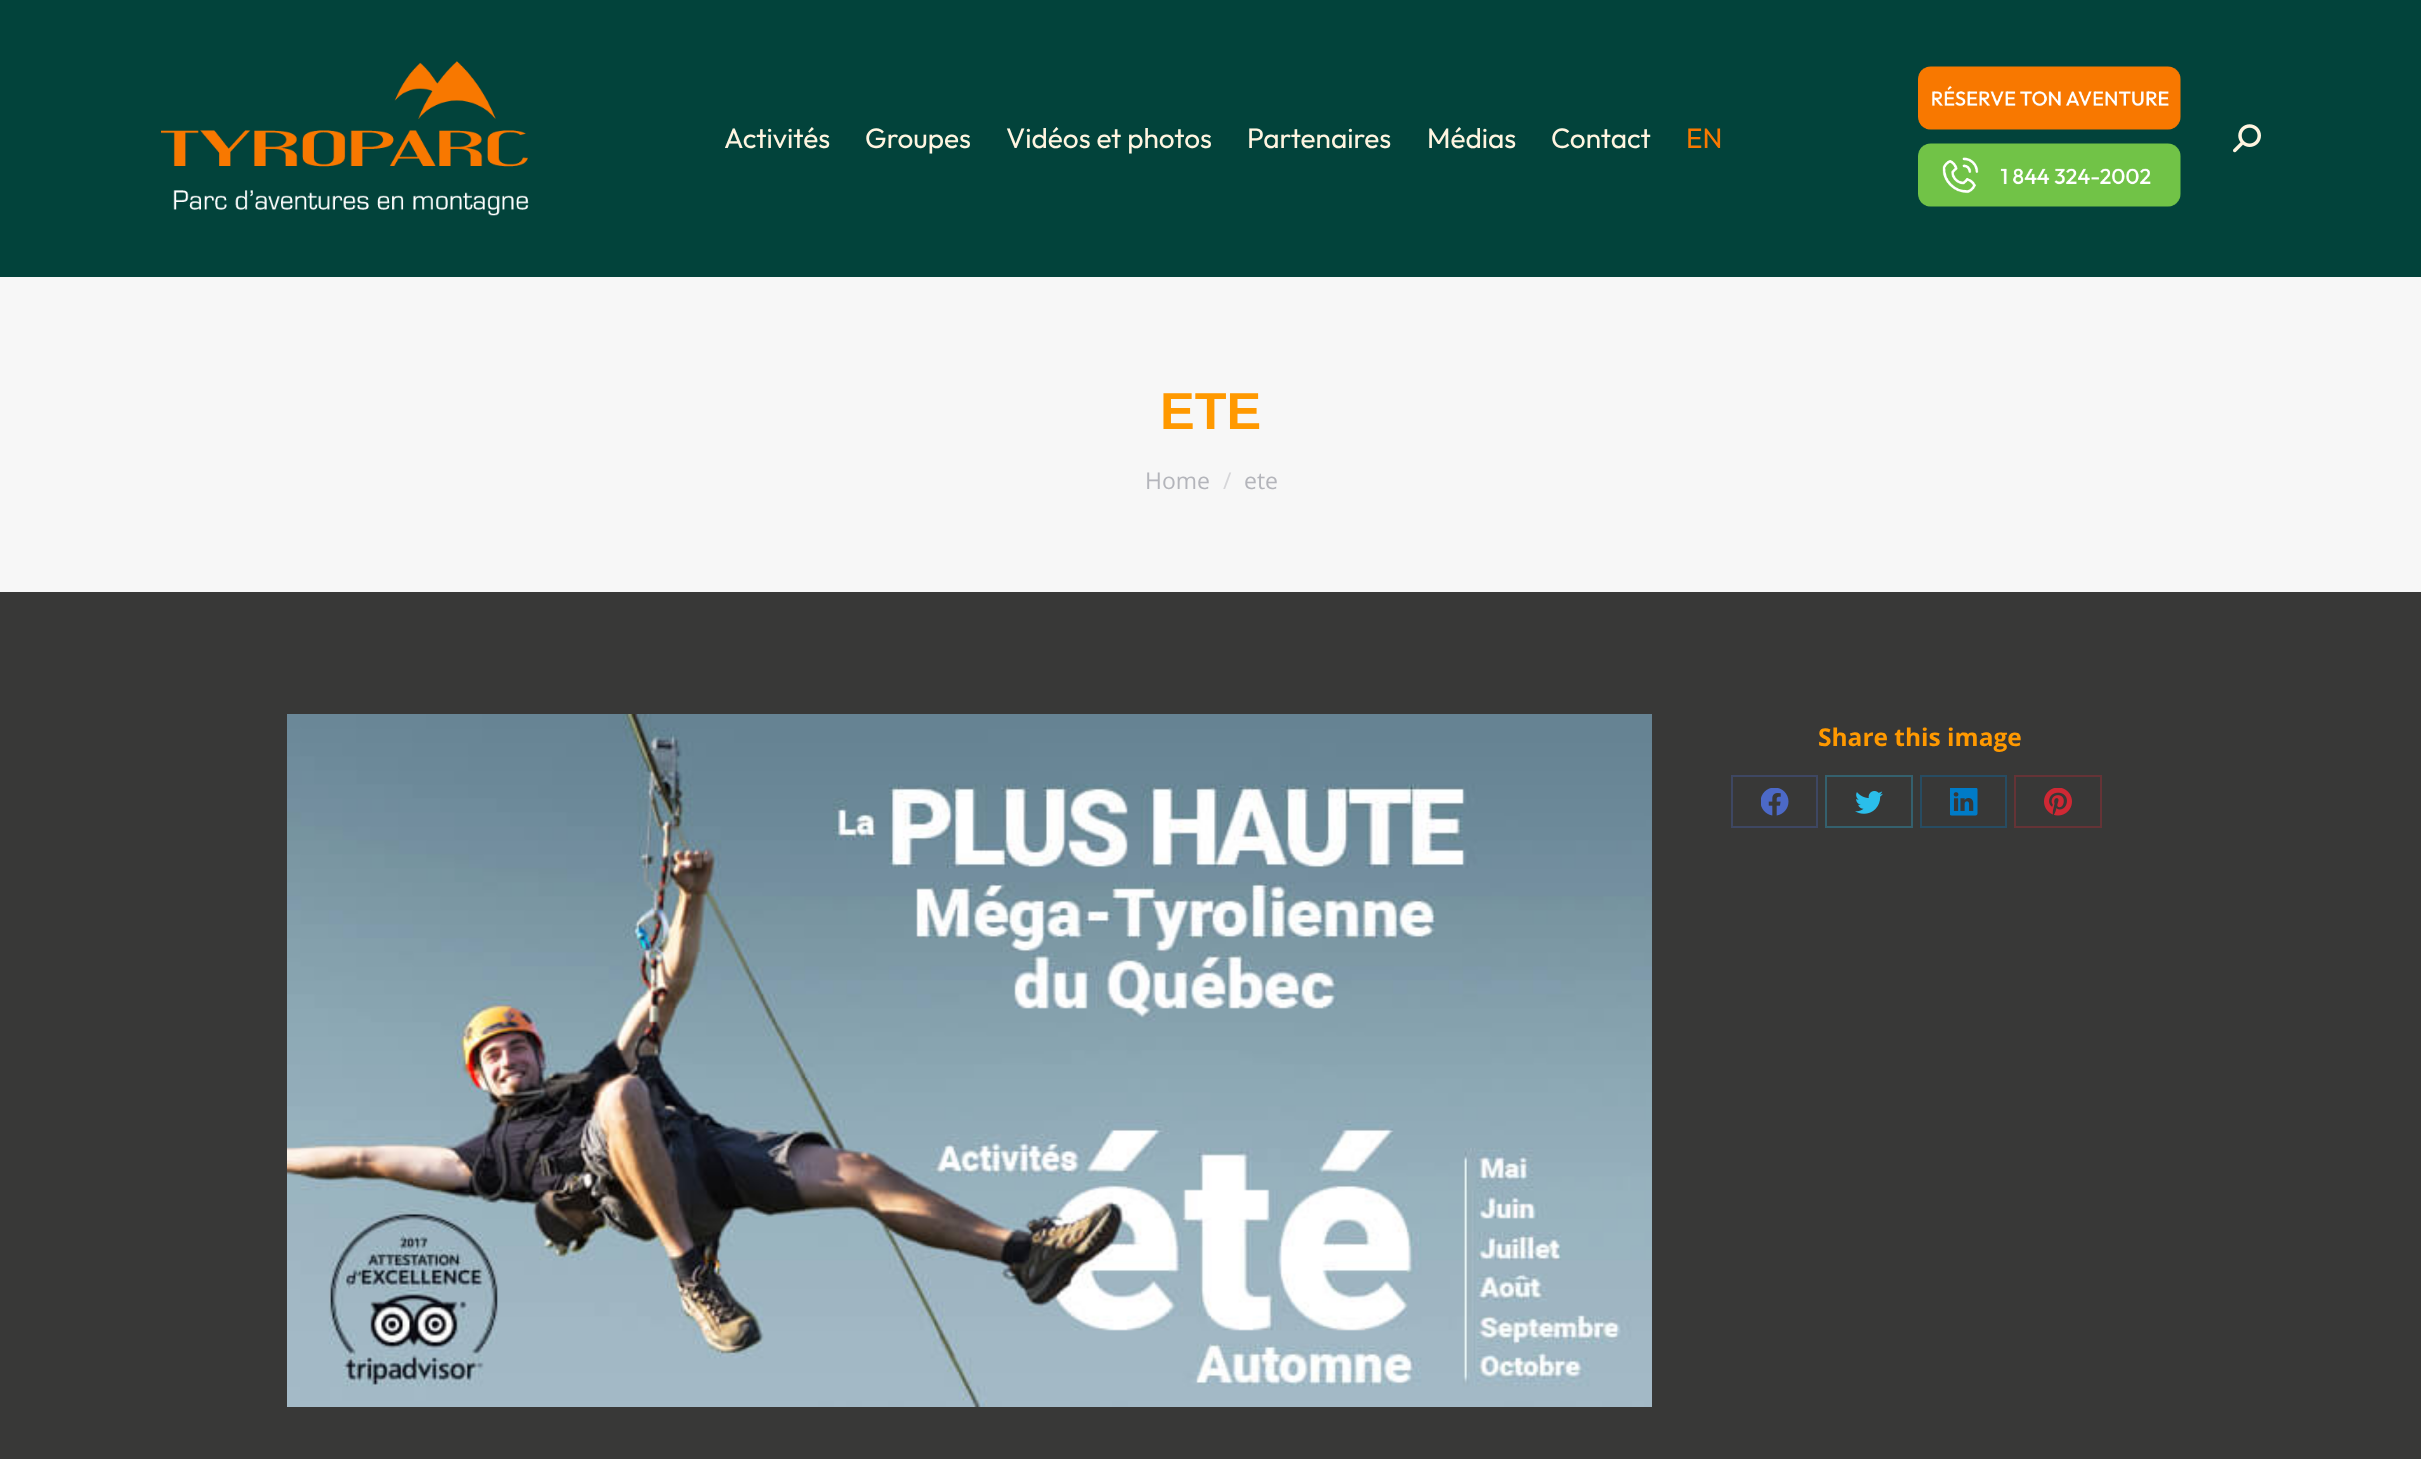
<svg xmlns="http://www.w3.org/2000/svg" width="2421" height="1459" viewBox="0 0 2421 1459">
  <rect width="100%" height="100%" fill="#383837"/>
  <rect x="0" y="0" width="2421" height="277" fill="#02433b"/>
  <image x="161" y="61" width="368" height="155" href="img1.png"/>
  <text x="724" y="148" font-family="Outfit" font-size="28" fill="#fff5e0">Activités</text>
  <text x="865" y="148" font-family="Outfit" font-size="28" fill="#fff5e0">Groupes</text>
  <text x="1006" y="148" font-family="Outfit" font-size="28" fill="#fff5e0">Vidéos et photos</text>
  <text x="1247" y="148" font-family="Outfit" font-size="28" fill="#fff5e0">Partenaires</text>
  <text x="1427" y="148" font-family="Outfit" font-size="28" fill="#fff5e0">Médias</text>
  <text x="1551" y="148" font-family="Outfit" font-size="28" fill="#fff5e0">Contact</text>
  <text x="1686" y="148" font-family="Outfit" font-size="28" fill="#f87800">EN</text>
  <image x="1918" y="66" width="263" height="64" href="img2.png"/>
  <image x="1918" y="143" width="263" height="64" href="img3.png"/>
  <image x="2233" y="124" width="28" height="29" href="img4.png"/>
  <rect x="0" y="277" width="2421" height="315" fill="#f7f7f7"/>
  <text x="1160" y="429" font-family="Liberation Sans" font-size="52" font-weight="bold" fill="#ff9900">ETE</text>
  <text x="1145" y="489" font-family="Open Sans" font-size="23" fill="#b4b5bb">Home</text>
  <text x="1223" y="489" font-family="Open Sans" font-size="23" fill="#d6d6d9">/</text>
  <text x="1244" y="489" font-family="Open Sans" font-size="23" fill="#b4b5bb">ete</text>
  <image x="287" y="714" width="1365" height="693" href="img5.png"/>
  <text x="1818" y="746" font-family="Open Sans" font-size="24.5" font-weight="bold" fill="#ff9900">Share this image</text>
  <rect x="1732" y="776" width="85" height="51" fill="none" stroke="#3e4762" stroke-width="2"/>
  <image x="1761" y="788" width="28" height="28" href="img6.png"/>
  <rect x="1826" y="776" width="86" height="51" fill="none" stroke="#34606d" stroke-width="2"/>
  <image x="1855" y="791" width="28" height="23" href="img7.png"/>
  <rect x="1921" y="776" width="85" height="51" fill="none" stroke="#274c62" stroke-width="2"/>
  <image x="1950" y="788" width="28" height="28" href="img8.png"/>
  <rect x="2015" y="776" width="86" height="51" fill="none" stroke="#653336" stroke-width="2"/>
  <image x="2044" y="788" width="28" height="28" href="img9.png"/>
</svg>
